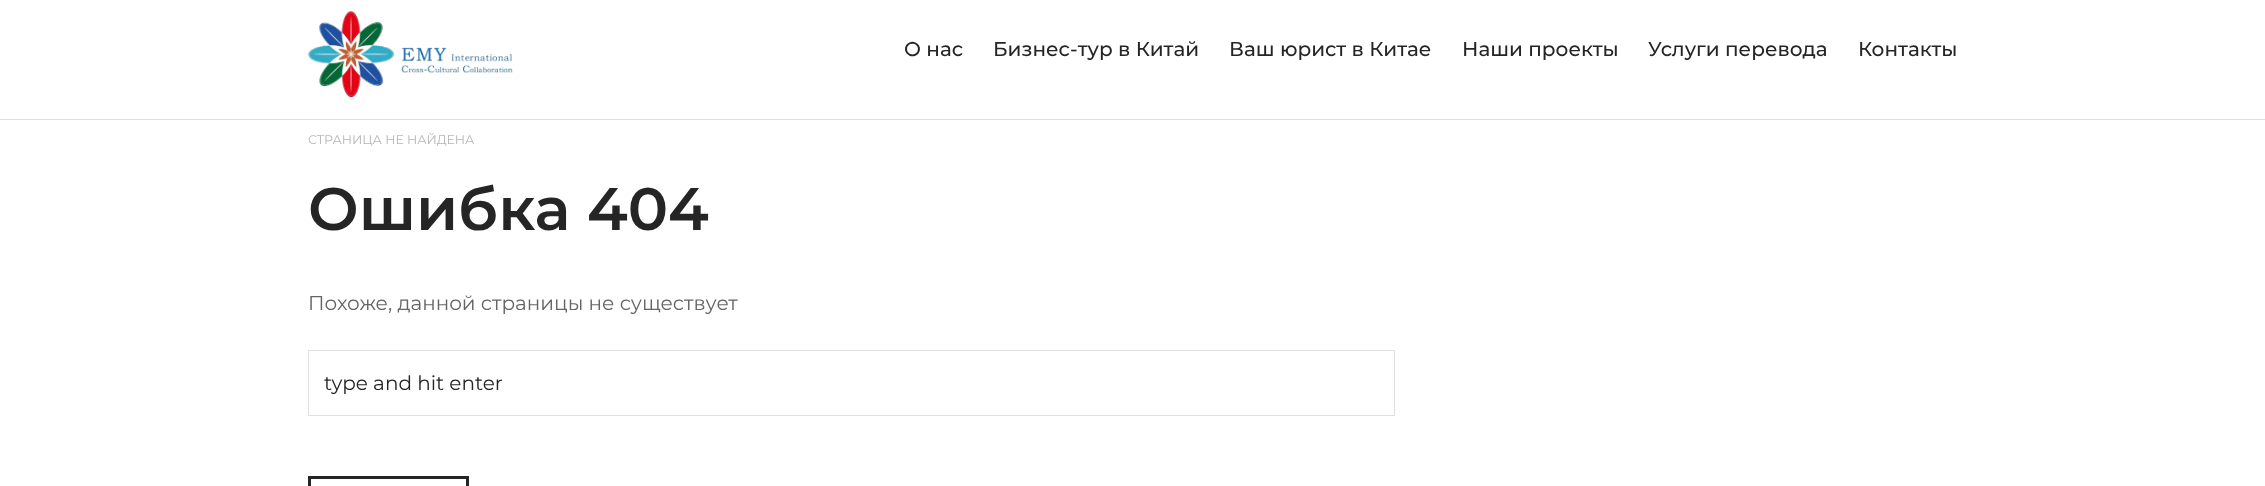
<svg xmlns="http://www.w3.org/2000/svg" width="2265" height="486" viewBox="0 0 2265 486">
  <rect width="100%" height="100%" fill="#ffffff"/>
  <rect x="0" y="119" width="2265" height="1" fill="#dddddd"/>
  <image x="308" y="10" width="205" height="88" href="img1.png"/>
  <text x="904" y="56" font-family="Montserrat" font-size="20" font-weight="500" fill="#252525">О нас</text>
  <text x="993" y="56" font-family="Montserrat" font-size="20" font-weight="500" fill="#252525">Бизнес-тур в Китай</text>
  <text x="1229" y="56" font-family="Montserrat" font-size="20" font-weight="500" fill="#252525">Ваш юрист в Китае</text>
  <text x="1462" y="56" font-family="Montserrat" font-size="20" font-weight="500" fill="#252525">Наши проекты</text>
  <text x="1648" y="56" font-family="Montserrat" font-size="20" font-weight="500" fill="#252525">Услуги перевода</text>
  <text x="1858" y="56" font-family="Montserrat" font-size="20" font-weight="500" fill="#252525">Контакты</text>
  <text x="308" y="144" font-family="Montserrat" font-size="12.5" fill="#b5b5b5">СТРАНИЦА НЕ НАЙДЕНА</text>
  <text x="308" y="230" font-family="Montserrat" font-size="60" font-weight="600" fill="#252525">Ошибка 404</text>
  <text x="308" y="310" font-family="Montserrat" font-size="20" fill="#656565">Похоже, данной страницы не существует</text>
  <rect x="308.5" y="350.5" width="1086" height="65" fill="none" stroke="#e0e0e0"/>
  <text x="324" y="390" font-family="Montserrat" font-size="20" fill="#252525">type and hit enter</text>
  <rect x="309.5" y="477.5" width="158" height="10" fill="none" stroke="#252525" stroke-width="3"/>
</svg>
